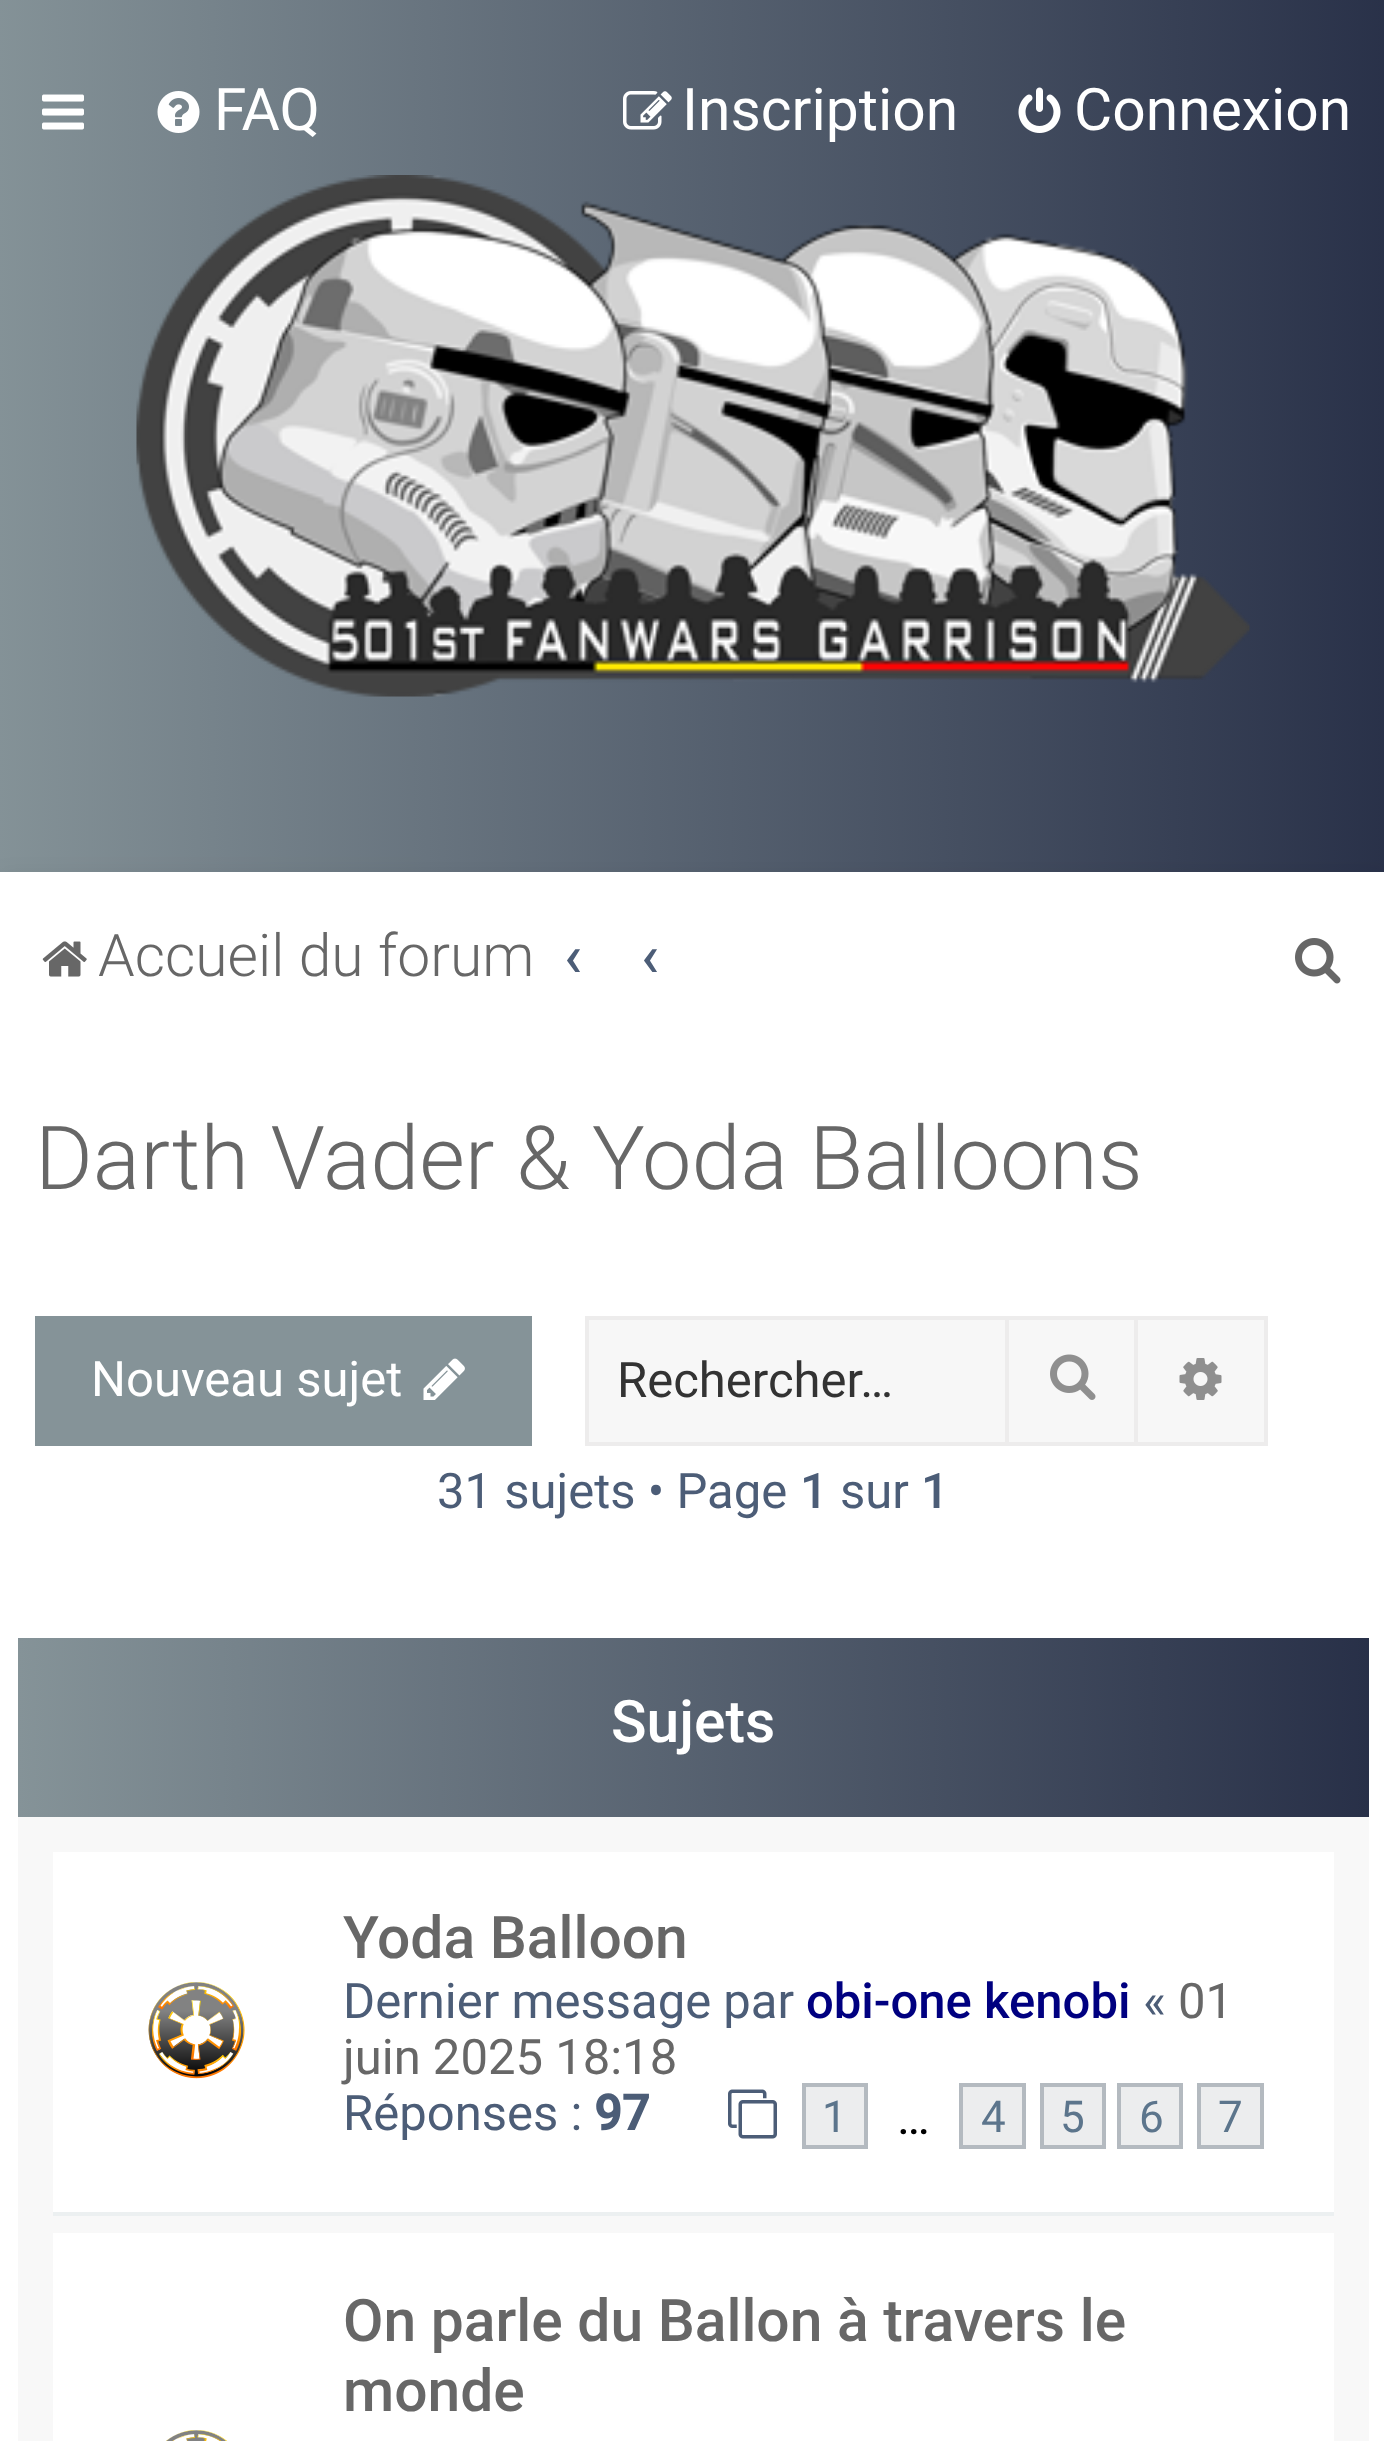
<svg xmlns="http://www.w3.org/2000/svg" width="1384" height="2441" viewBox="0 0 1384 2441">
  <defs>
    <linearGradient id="g1" gradientUnits="userSpaceOnUse" x1="-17" y1="523" x2="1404" y2="523"><stop offset="0" stop-color="#859398"/><stop offset="1" stop-color="#283048"/></linearGradient>
    <filter id="blur1" x="-50%" y="-200%" width="200%" height="500%"><feGaussianBlur stdDeviation="9"/></filter>
    <linearGradient id="g2" gradientUnits="userSpaceOnUse" x1="18" y1="1727" x2="1369" y2="1727"><stop offset="0" stop-color="#859398"/><stop offset="1" stop-color="#283048"/></linearGradient>
  </defs>
  <rect width="100%" height="100%" fill="#ffffff"/>
  <rect x="0" y="0" width="1384" height="872" fill="url(#g1)"/>
  <image x="136" y="175" width="1114" height="522" href="img1.png"/>
  <image x="42" y="94" width="42" height="36" href="img2.png"/>
  <image x="157" y="91" width="43" height="42" href="img3.png"/>
  <text x="214" y="130" font-family="Roboto" font-size="58.75" fill="#ffffff">FAQ</text>
  <image x="623" y="91" width="49" height="39" href="img4.png"/>
  <text x="682" y="130" font-family="Roboto" font-size="58.75" fill="#ffffff">Inscription</text>
  <image x="1018" y="87" width="43" height="46" href="img5.png"/>
  <text x="1074" y="130" font-family="Roboto" font-size="58.75" fill="#ffffff">Connexion</text>
  <rect x="0" y="872" width="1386" height="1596" fill="#000000" fill-opacity="0.05" filter="url(#blur1)"/>
  <rect x="0" y="872" width="1384" height="1569" fill="#ffffff"/>
  <image x="42" y="941" width="45" height="36" href="img6.png"/>
  <text x="98" y="976" font-family="Roboto" font-size="58.75" font-weight="300" fill="#676767">Accueil du forum</text>
  <text x="564" y="976" font-family="Roboto" font-size="58.75" font-weight="500" fill="#4c5d77">‹</text>
  <text x="641" y="976" font-family="Roboto" font-size="58.75" font-weight="500" fill="#4c5d77">‹</text>
  <image x="1295" y="938" width="46" height="46" href="img7.png"/>
  <text x="35" y="1189" font-family="Roboto" font-size="88.25" font-weight="300" fill="#676767">Darth Vader &amp; Yoda Balloons</text>
  <rect x="35" y="1316" width="497" height="130" fill="#859398"/>
  <text x="91" y="1396" font-family="Roboto" font-size="49" fill="#ffffff">Nouveau sujet</text>
  <image x="423" y="1358" width="42" height="42" href="img8.png"/>
  <rect x="589" y="1320" width="416" height="122" fill="#f7f7f7"/>
  <rect x="585" y="1316" width="420" height="4" fill="#edecec"/>
  <rect x="585" y="1442" width="420" height="4" fill="#edecec"/>
  <rect x="585" y="1316" width="4" height="130" fill="#edecec"/>
  <text x="617" y="1397" font-family="Roboto" font-size="49" fill="#333333">Rechercher…</text>
  <rect x="1007" y="1318" width="129" height="126" fill="#f7f7f7" stroke="#edecec" stroke-width="4"/>
  <image x="1050" y="1354" width="46" height="46" href="img9.png"/>
  <rect x="1138" y="1320" width="126" height="122" fill="#f7f7f7"/>
  <rect x="1138" y="1316" width="129" height="4" fill="#edecec"/>
  <rect x="1264" y="1316" width="4" height="130" fill="#edecec"/>
  <rect x="1138" y="1442" width="129" height="4" fill="#edecec"/>
  <image x="1179" y="1358" width="43" height="42" href="img10.png"/>
  <text x="437" y="1508" font-family="Roboto" font-size="49" fill="#4c5d77">31 sujets • Page</text>
  <text x="800" y="1508" font-family="Roboto" font-size="49" font-weight="500" fill="#4c5d77">1</text>
  <text x="840" y="1508" font-family="Roboto" font-size="49" fill="#4c5d77">sur</text>
  <text x="921" y="1508" font-family="Roboto" font-size="49" font-weight="500" fill="#4c5d77">1</text>
  <rect x="18" y="1817" width="1351" height="624" fill="#f8f8f8"/>
  <rect x="18" y="1638" width="1351" height="179" fill="url(#g2)"/>
  <text x="611" y="1742" font-family="Roboto" font-size="58.75" font-weight="500" fill="#ffffff">Sujets</text>
  <rect x="53" y="1852" width="1281" height="360" fill="#ffffff"/>
  <rect x="53" y="2212" width="1281" height="4" fill="#ecf0f1"/>
  <image x="148" y="1982" width="97" height="97" href="img11.png"/>
  <text x="343" y="1958" font-family="Roboto" font-size="58.75" font-weight="500" fill="#676767">Yoda Balloon</text>
  <text x="343" y="2018" font-family="Roboto" font-size="49" fill="#4c5d77">Dernier message par</text>
  <text x="806" y="2018" font-family="Roboto" font-size="49" font-weight="500" fill="#000080">obi-one kenobi</text>
  <text x="1143" y="2018" font-family="Roboto" font-size="49" fill="#4c5d77">«</text>
  <text x="1178" y="2018" font-family="Roboto" font-size="49" fill="#676767">01</text>
  <text x="343" y="2074" font-family="Roboto" font-size="49" fill="#676767">juin 2025 18:18</text>
  <text x="343" y="2130" font-family="Roboto" font-size="49" fill="#4c5d77">Réponses :</text>
  <text x="594" y="2130" font-family="Roboto" font-size="49" font-weight="bold" fill="#4c5d77">97</text>
  <image x="728" y="2089" width="49" height="50" href="img12.png"/>
  <rect x="804" y="2085" width="62" height="62" fill="#ecedee" stroke="#b4bac0" stroke-width="4"/>
  <text x="822" y="2132" font-family="Roboto" font-size="44" fill="#5c758c">1</text>
  <text x="897" y="2134" font-family="Roboto" font-size="49" fill="#000000">…</text>
  <rect x="961" y="2085" width="63" height="62" fill="#ecedee" stroke="#b4bac0" stroke-width="4"/>
  <text x="981" y="2132" font-family="Roboto" font-size="44" fill="#5c758c">4</text>
  <rect x="1042" y="2085" width="62" height="62" fill="#ecedee" stroke="#b4bac0" stroke-width="4"/>
  <text x="1060" y="2132" font-family="Roboto" font-size="44" fill="#5c758c">5</text>
  <rect x="1119" y="2085" width="62" height="62" fill="#ecedee" stroke="#b4bac0" stroke-width="4"/>
  <text x="1139" y="2132" font-family="Roboto" font-size="44" fill="#5c758c">6</text>
  <rect x="1199" y="2085" width="63" height="62" fill="#ecedee" stroke="#b4bac0" stroke-width="4"/>
  <text x="1218" y="2132" font-family="Roboto" font-size="44" fill="#5c758c">7</text>
  <rect x="53" y="2233" width="1281" height="208" fill="#ffffff"/>
  <image x="166" y="2430" width="61" height="11" href="img13.png"/>
  <text x="343" y="2341" font-family="Roboto" font-size="58.75" font-weight="500" fill="#676767">On parle du Ballon à travers le</text>
  <text x="343" y="2411" font-family="Roboto" font-size="58.75" font-weight="500" fill="#676767">monde</text>
</svg>
